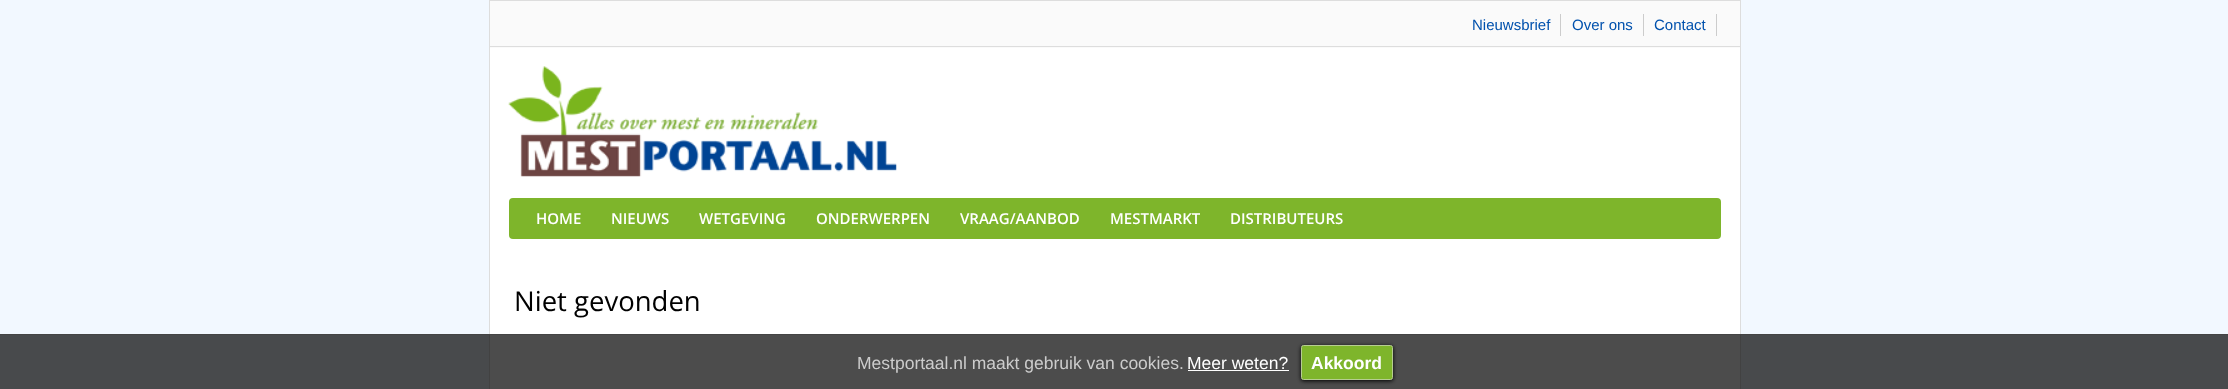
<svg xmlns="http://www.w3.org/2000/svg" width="2228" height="389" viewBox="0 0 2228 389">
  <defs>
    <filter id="blur1" x="-50%" y="-200%" width="200%" height="500%"><feGaussianBlur stdDeviation="2"/></filter>
  </defs>
  <rect width="100%" height="100%" fill="#f2f8ff"/>
  <rect x="490" y="48" width="1250" height="341" fill="#ffffff"/>
  <rect x="489.5" y="0.5" width="1251" height="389" fill="none" stroke="#dddddd"/>
  <rect x="490" y="1" width="1250" height="47" fill="#fafafa"/>
  <rect x="490" y="46" width="1250" height="1" fill="#dddddd"/>
  <rect x="1560" y="14" width="1" height="22" fill="#cccccc"/>
  <text x="1472" y="30" font-family="Liberation Sans" font-size="15" fill="#0051ad">Nieuwsbrief</text>
  <rect x="1643" y="14" width="1" height="22" fill="#cccccc"/>
  <text x="1572" y="30" font-family="Liberation Sans" font-size="15" fill="#0051ad">Over ons</text>
  <rect x="1716" y="14" width="1" height="22" fill="#cccccc"/>
  <text x="1654" y="30" font-family="Liberation Sans" font-size="15" fill="#0051ad">Contact</text>
  <image x="508" y="66" width="389" height="111" href="img1.png"/>
  <rect x="509" y="198" width="1212" height="41" rx="4" fill="#7eb52b"/>
  <text x="536" y="224" font-family="Open Sans" font-size="15" font-weight="600" fill="#ffffff">HOME</text>
  <text x="611" y="224" font-family="Open Sans" font-size="15" font-weight="600" fill="#ffffff">NIEUWS</text>
  <text x="699" y="224" font-family="Open Sans" font-size="15" font-weight="600" fill="#ffffff">WETGEVING</text>
  <text x="816" y="224" font-family="Open Sans" font-size="15" font-weight="600" fill="#ffffff">ONDERWERPEN</text>
  <text x="960" y="224" font-family="Open Sans" font-size="15" font-weight="600" fill="#ffffff">VRAAG/AANBOD</text>
  <text x="1110" y="224" font-family="Open Sans" font-size="15" font-weight="600" fill="#ffffff">MESTMARKT</text>
  <text x="1230" y="224" font-family="Open Sans" font-size="15" font-weight="600" fill="#ffffff">DISTRIBUTEURS</text>
  <text x="514" y="311" font-family="Open Sans" font-size="27.5" fill="#000000">Niet gevonden</text>
  <rect x="0" y="335" width="2228" height="54" fill="#000000" fill-opacity="0.7"/>
  <rect x="0" y="334" width="2228" height="1" fill="#444444"/>
  <text x="857" y="369" font-family="Liberation Sans" font-size="17.5" fill="#cccccc">Mestportaal.nl maakt gebruik van cookies.</text>
  <text x="1187" y="369" font-family="Liberation Sans" font-size="17.5" fill="#ffffff">Meer weten?</text>
  <rect x="1188" y="370" width="101" height="1" fill="#ffffff"/>
  <rect x="1301" y="346" width="92" height="35" rx="2.5" fill="#000000" filter="url(#blur1)"/>
  <rect x="1301.5" y="345.5" width="91" height="34" rx="2" fill="#7eb52b" stroke="#b6cd91"/>
  <text x="1311" y="369" font-family="Liberation Sans" font-size="17.5" font-weight="bold" fill="#ffffff">Akkoord</text>
</svg>
